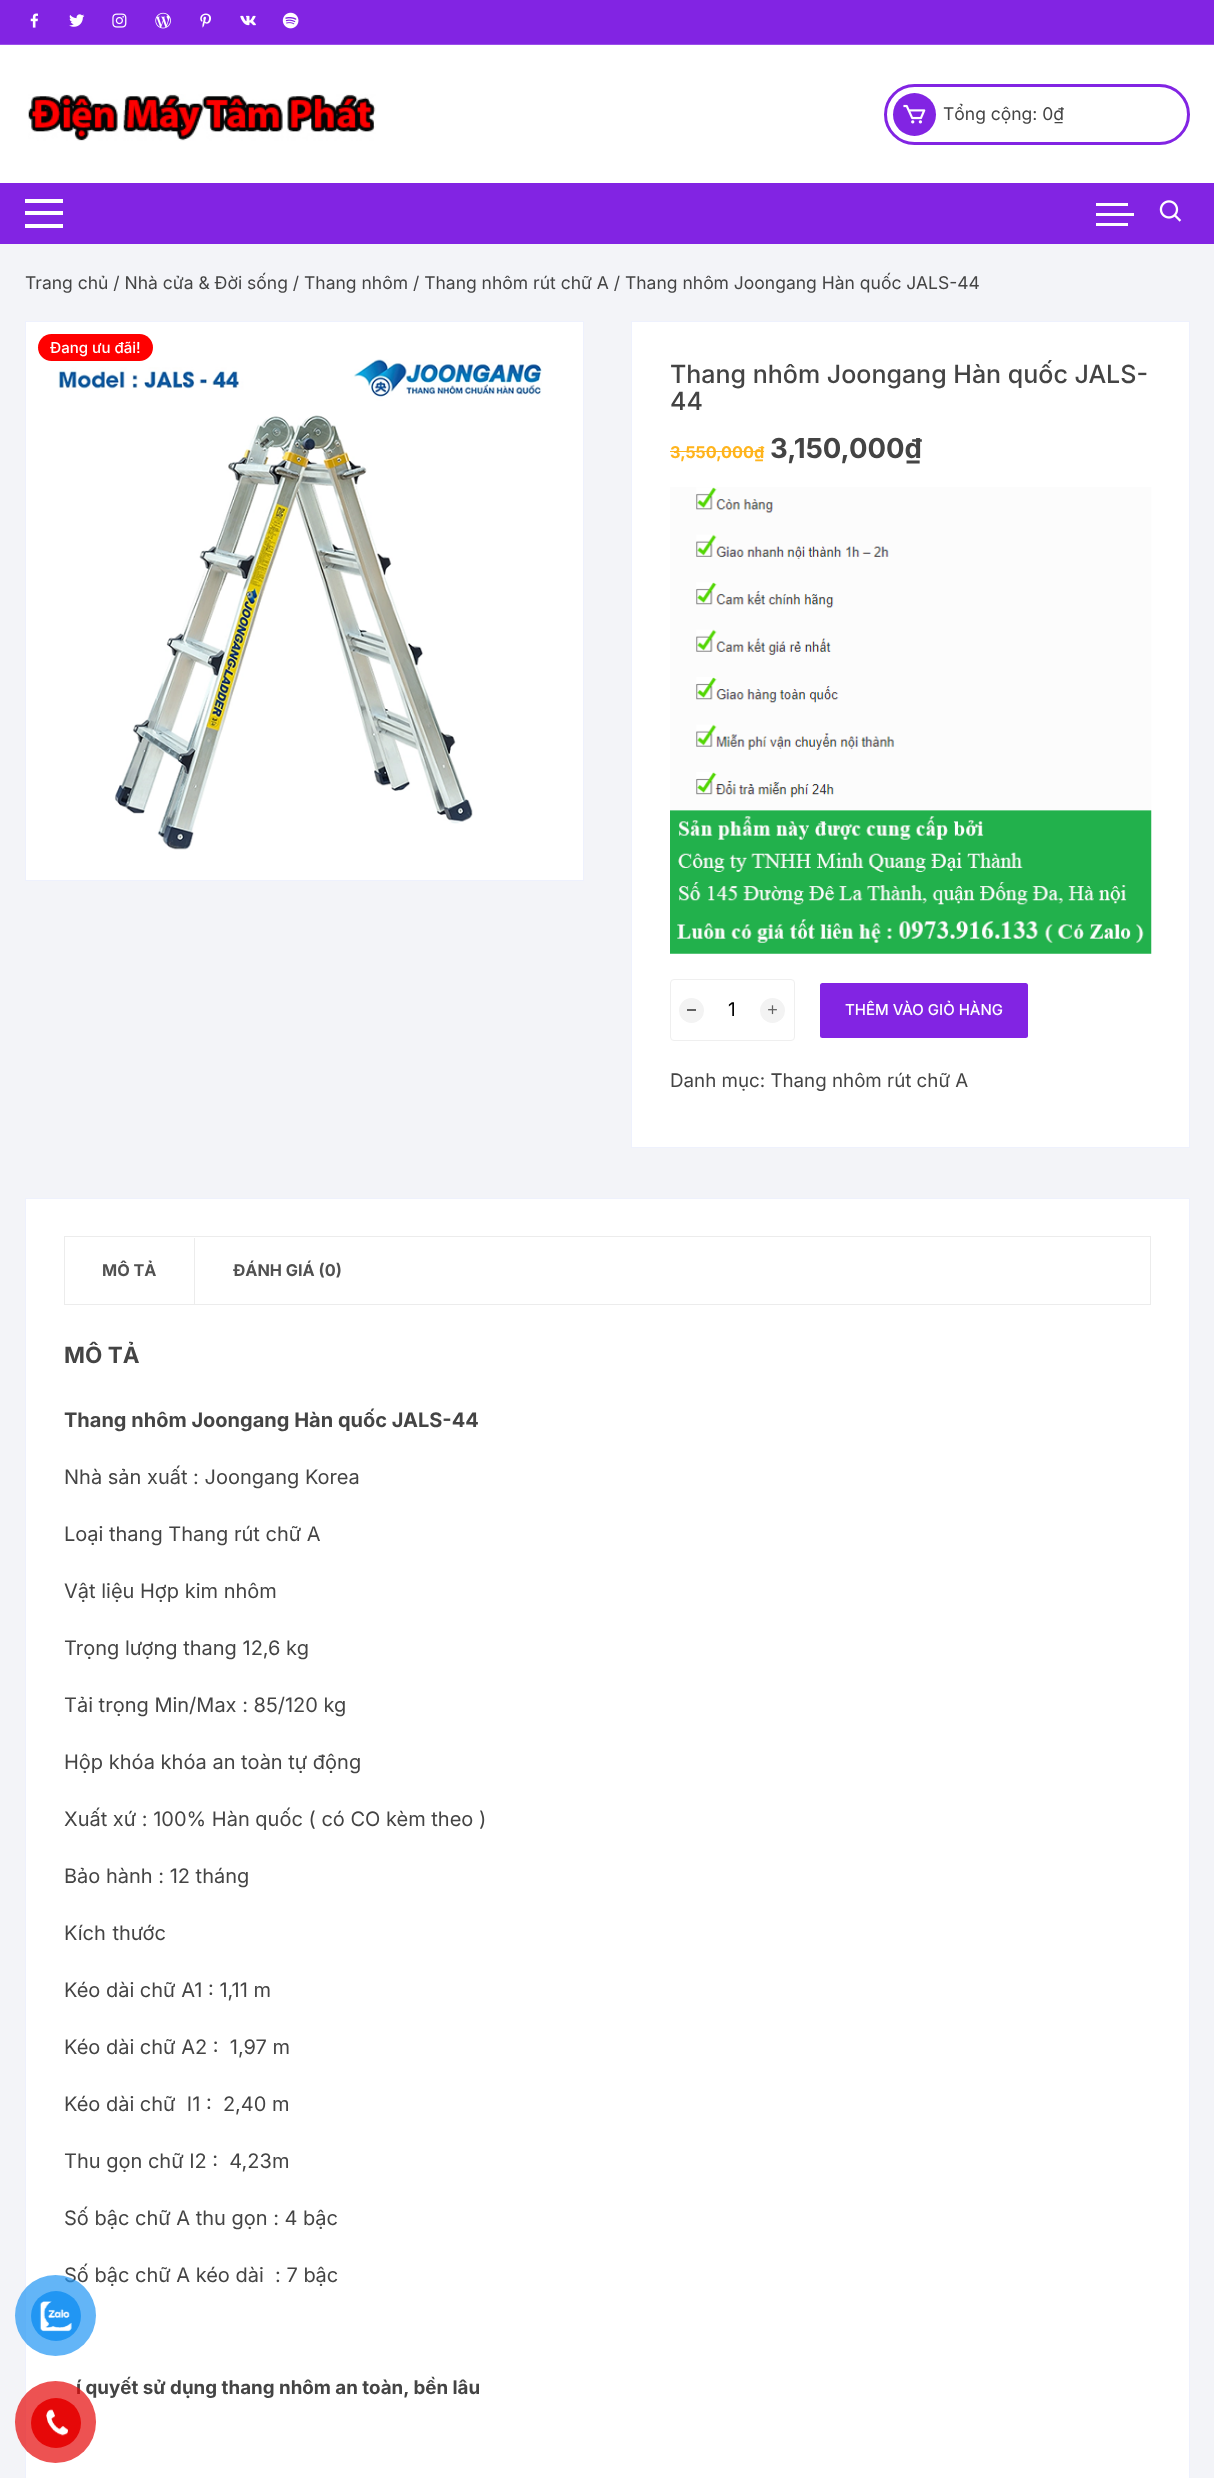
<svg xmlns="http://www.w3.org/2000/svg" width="1214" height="2478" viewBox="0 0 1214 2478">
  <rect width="100%" height="100%" fill="#f3f4f8"/>
  <rect x="0" y="45" width="1214" height="138" fill="#ffffff"/>
  <rect x="0" y="0" width="1214" height="44" fill="#8224e3"/>
  <rect x="0" y="44" width="1214" height="1" fill="#9b50e9"/>
  <image x="30" y="13" width="8" height="15" href="img1.png"/>
  <image x="69" y="14" width="16" height="13" href="img2.png"/>
  <image x="112" y="13" width="15" height="15" href="img3.png"/>
  <image x="155" y="12" width="16" height="17" href="img4.png"/>
  <image x="200" y="13" width="11" height="15" href="img5.png"/>
  <image x="240" y="15" width="16" height="11" href="img6.png"/>
  <image x="282" y="12" width="17" height="17" href="img7.png"/>
  <image x="28" y="94" width="348" height="47" href="img8.png"/>
  <rect x="885.5" y="85.5" width="303" height="58" rx="29" fill="none" stroke="#8224e3" stroke-width="3"/>
  <circle cx="914.5" cy="114.5" r="21.5" fill="#8224e3"/>
  <image x="903" y="104" width="23" height="20" href="img9.png"/>
  <text x="943" y="120" font-family="Inter" font-size="17.5" fill="#444444">Tổng cộng: 0₫</text>
  <rect x="0" y="183" width="1214" height="61" fill="#8224e3"/>
  <rect x="25" y="199" width="38" height="4" fill="#ffffff"/>
  <rect x="25" y="211" width="38" height="4" fill="#ffffff"/>
  <rect x="25" y="224" width="38" height="4" fill="#ffffff"/>
  <rect x="1096" y="203" width="32" height="3" fill="#ffffff"/>
  <rect x="1096" y="213" width="38" height="3" fill="#ffffff"/>
  <rect x="1096" y="223" width="32" height="3" fill="#ffffff"/>
  <image x="1159" y="200" width="23" height="22" href="img10.png"/>
  <text x="25" y="289" font-family="Inter" font-size="17.5" fill="#444444">Trang chủ / Nhà cửa &amp; Đời sống / Thang nhôm / Thang nhôm rút chữ A / Thang nhôm Joongang Hàn quốc JALS-44</text>
  <rect x="25.5" y="321.5" width="558" height="559" fill="#ffffff" stroke="#eef1fd"/>
  <image x="58" y="359" width="484" height="491" href="img11.png"/>
  <rect x="38" y="334" width="115" height="27" rx="13.5" fill="#ff0000"/>
  <text x="50" y="353" font-family="Inter" font-size="15" font-weight="500" fill="#ffffff">Đang ưu đãi!</text>
  <rect x="631.5" y="321.5" width="558" height="826" fill="#ffffff" stroke="#eef1fd"/>
  <text x="670" y="383" font-family="Inter" font-size="25" font-weight="500" fill="#444444">Thang nhôm Joongang Hàn quốc JALS-</text>
  <text x="670" y="410" font-family="Inter" font-size="25" font-weight="500" fill="#444444">44</text>
  <text x="670" y="458" font-family="Inter" font-size="16.25" font-weight="bold" fill="#ffb41d">3,550,000₫</text>
  <rect x="670" y="451" width="94" height="1" fill="#ffb41d"/>
  <text x="770" y="458" font-family="Inter" font-size="27.5" font-weight="bold" fill="#444444">3,150,000₫</text>
  <image x="670" y="487" width="482" height="467" href="img12.png"/>
  <rect x="670.5" y="979.5" width="124" height="61" rx="3.5" fill="none" stroke="#efefef"/>
  <circle cx="691.5" cy="1010.5" r="12.5" fill="#f3f3f3"/>
  <rect x="687" y="1009" width="9" height="2" fill="#616161"/>
  <text x="728" y="1016" font-family="Inter" font-size="18.75" fill="#000000">1</text>
  <circle cx="772.5" cy="1010.5" r="12.5" fill="#f3f3f3"/>
  <image x="768" y="1005" width="9" height="10" href="img13.png"/>
  <rect x="820" y="983" width="208" height="55" rx="2.5" fill="#8224e3"/>
  <text x="845" y="1015" font-family="Inter" font-size="15" font-weight="500" fill="#ffffff">THÊM VÀO GIỎ HÀNG</text>
  <text x="670" y="1087" font-family="Inter" font-size="18.75" fill="#444444">Danh mục: Thang nhôm rút chữ A</text>
  <rect x="25.5" y="1198.5" width="1164" height="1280" fill="#ffffff" stroke="#eef1fd"/>
  <rect x="64.5" y="1236.5" width="1086" height="68" fill="none" stroke="#ececec"/>
  <rect x="194" y="1238" width="1" height="66" fill="#ececec"/>
  <text x="102" y="1276" font-family="Inter" font-size="16.25" font-weight="bold" fill="#515151">MÔ TẢ</text>
  <text x="233" y="1276" font-family="Inter" font-size="16.25" font-weight="bold" fill="#515151">ĐÁNH GIÁ (0)</text>
  <text x="64" y="1363" font-family="Inter" font-size="22.5" font-weight="bold" fill="#444444">MÔ TẢ</text>
  <text x="64" y="1427" font-family="Inter" font-size="20" font-weight="bold" fill="#444444">Thang nhôm Joongang Hàn quốc JALS-44</text>
  <text x="64" y="1484" font-family="Inter" font-size="20" fill="#444444">Nhà sản xuất : Joongang Korea</text>
  <text x="64" y="1541" font-family="Inter" font-size="20" fill="#444444">Loại thang Thang rút chữ A</text>
  <text x="64" y="1598" font-family="Inter" font-size="20" fill="#444444">Vật liệu Hợp kim nhôm</text>
  <text x="64" y="1655" font-family="Inter" font-size="20" fill="#444444">Trọng lượng thang 12,6 kg</text>
  <text x="64" y="1712" font-family="Inter" font-size="20" fill="#444444">Tải trọng Min/Max : 85/120 kg</text>
  <text x="64" y="1769" font-family="Inter" font-size="20" fill="#444444">Hộp khóa khóa an toàn tự động</text>
  <text x="64" y="1826" font-family="Inter" font-size="20" fill="#444444">Xuất xứ : 100% Hàn quốc ( có CO kèm theo )</text>
  <text x="64" y="1883" font-family="Inter" font-size="20" fill="#444444">Bảo hành : 12 tháng</text>
  <text x="64" y="1940" word-spacing="1" font-family="Inter" font-size="20" fill="#444444">Kích thước</text>
  <text x="64" y="1997" font-family="Inter" font-size="20" fill="#444444">Kéo dài chữ A1 : 1,11 m</text>
  <text x="64" y="2054" font-family="Inter" font-size="20" fill="#444444" xml:space="preserve">Kéo dài chữ A2 :  1,97 m</text>
  <text x="64" y="2111" font-family="Inter" font-size="20" fill="#444444" xml:space="preserve">Kéo dài chữ  I1 :  2,40 m</text>
  <text x="64" y="2168" font-family="Inter" font-size="20" fill="#444444" xml:space="preserve">Thu gọn chữ I2 :  4,23m</text>
  <text x="64" y="2225" font-family="Inter" font-size="20" fill="#444444">Số bậc chữ A thu gọn : 4 bậc</text>
  <text x="64" y="2282" font-family="Inter" font-size="20" fill="#444444" xml:space="preserve">Số bậc chữ A kéo dài  : 7 bậc</text>
  <text x="76" y="2394" font-family="Inter" font-size="18.75" font-weight="bold" fill="#444444">í quyết sử dụng thang nhôm an toàn, bền lâu</text>
  <circle cx="55.5" cy="2315.5" r="40.5" fill="#2196f3" fill-opacity="0.7"/>
  <circle cx="56" cy="2316" r="25" fill="#2196f3"/>
  <image x="39" y="2301" width="33" height="31" href="img14.png"/>
  <rect x="15" y="2381" width="81" height="82" rx="40.5" fill="#e60808" fill-opacity="0.7"/>
  <circle cx="56" cy="2423" r="25" fill="#e60808"/>
  <image x="46" y="2409" width="22" height="27" href="img15.png"/>
</svg>
